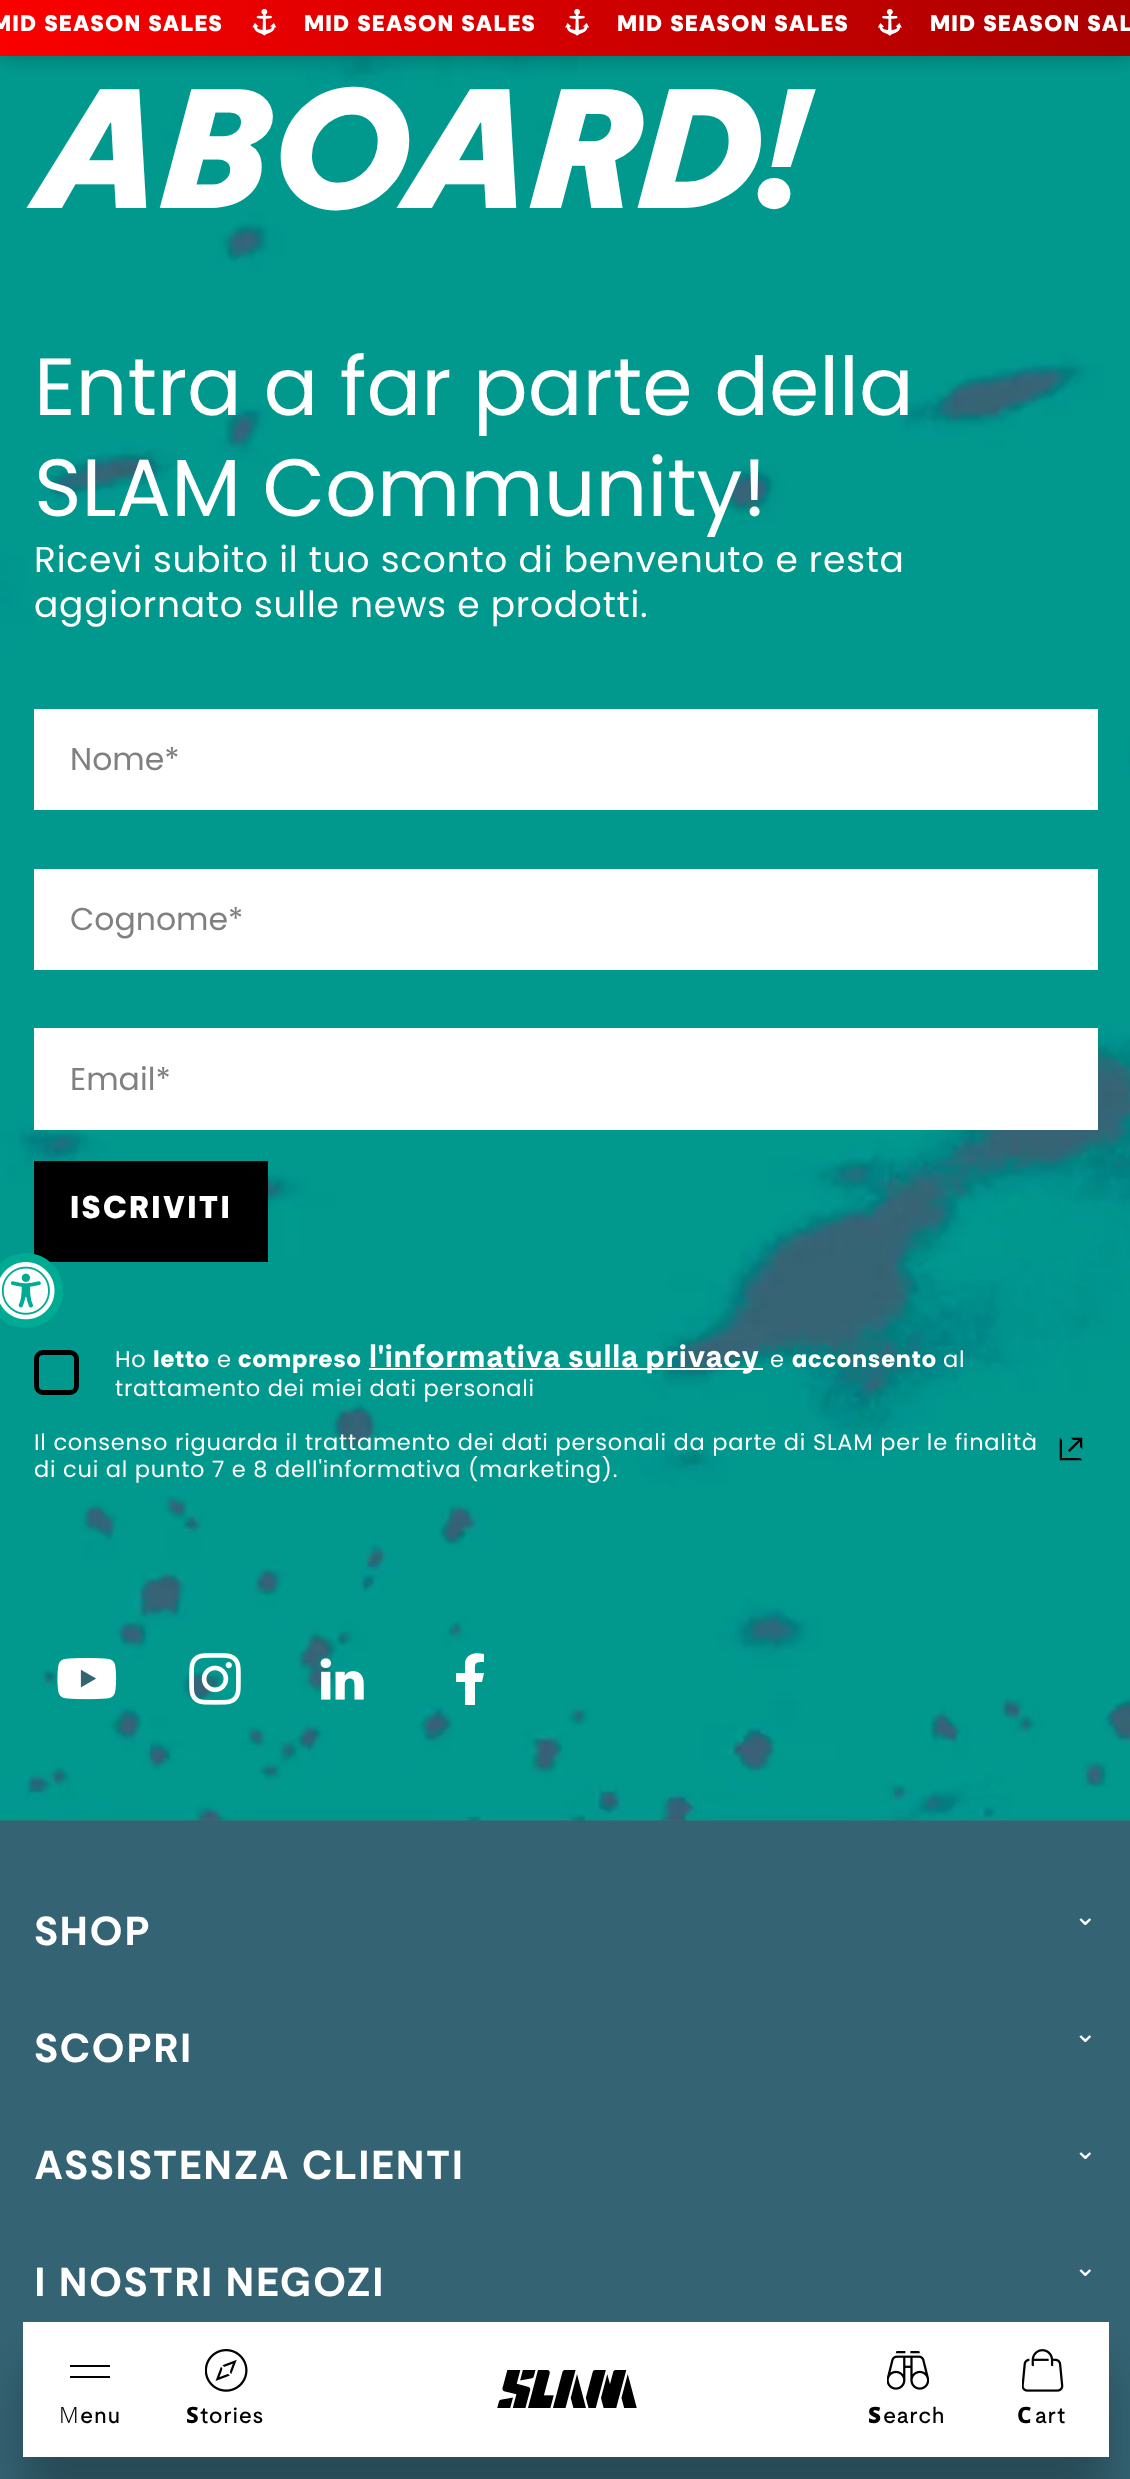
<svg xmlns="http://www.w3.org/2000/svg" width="1130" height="2479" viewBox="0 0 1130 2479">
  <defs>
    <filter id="blur1" x="-50%" y="-200%" width="200%" height="500%"><feGaussianBlur stdDeviation="11"/></filter>
    <linearGradient id="g1" gradientUnits="userSpaceOnUse" x1="0" y1="28" x2="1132" y2="28"><stop offset="0" stop-color="#fa0000"/><stop offset="1" stop-color="#aa0000"/></linearGradient>
    <filter id="blur2" x="-50%" y="-200%" width="200%" height="500%"><feGaussianBlur stdDeviation="22.5"/></filter>
  </defs>
  <rect width="100%" height="100%" fill="#346373"/>
  <image x="0" y="56" width="1130" height="1765" href="img4.png"/>
  <rect x="0" y="0" width="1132" height="56" fill="#000000" fill-opacity="0.29" filter="url(#blur1)"/>
  <rect x="0" y="0" width="1130" height="56" fill="url(#g1)"/>
  <text x="-9" y="31" font-family="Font" font-size="22.5" font-weight="900" letter-spacing="1.1" fill="#ffffff">MID SEASON SALES</text>
  <image x="252" y="8" width="25" height="28" href="img1.png"/>
  <text x="304" y="31" font-family="Font" font-size="22.5" font-weight="900" letter-spacing="1.1" fill="#ffffff">MID SEASON SALES</text>
  <image x="565" y="9" width="25" height="27" href="img2.png"/>
  <text x="617" y="31" font-family="Font" font-size="22.5" font-weight="900" letter-spacing="1.1" fill="#ffffff">MID SEASON SALES</text>
  <image x="877" y="9" width="25" height="27" href="img3.png"/>
  <text x="930" y="31" font-family="Font" font-size="22.5" font-weight="900" letter-spacing="1.1" fill="#ffffff">MID SEASON SAL</text>
  <text x="34" y="208" font-family="Font" font-size="169.75" font-weight="900" font-style="italic" fill="#ffffff">ABOARD!</text>
  <text x="34" y="415" font-family="Poppins" font-size="81" fill="#ffffff">Entra a far parte della</text>
  <text x="34" y="516" font-family="Poppins" font-size="81" fill="#ffffff">SLAM Community!</text>
  <text x="34" y="572" font-family="Poppins" font-size="36" letter-spacing="0.77" fill="#ffffff">Ricevi subito il tuo sconto di benvenuto e resta</text>
  <text x="34" y="617" font-family="Poppins" font-size="36" letter-spacing="0.77" fill="#ffffff">aggiornato sulle news e prodotti.</text>
  <rect x="34" y="709" width="1064" height="101" fill="#ffffff"/>
  <text x="70" y="770" font-family="Poppins" font-size="31.5" fill="#808080">Nome*</text>
  <rect x="34" y="869" width="1064" height="101" fill="#ffffff"/>
  <text x="70" y="930" font-family="Poppins" font-size="31.5" fill="#808080">Cognome*</text>
  <rect x="34" y="1028" width="1064" height="102" fill="#ffffff"/>
  <text x="70" y="1090" font-family="Poppins" font-size="31.5" fill="#808080">Email*</text>
  <rect x="34" y="1161" width="234" height="101" fill="#000000"/>
  <text x="70" y="1218" font-family="Font" font-size="31.5" font-weight="900" letter-spacing="2.25" fill="#ffffff">ISCRIVITI</text>
  <rect x="36.5" y="1352.5" width="40" height="40" rx="6.5" fill="none" stroke="#000000" stroke-width="5"/>
  <text x="115" y="1367" font-family="Poppins" font-size="22.5" letter-spacing="0.77" fill="#ffffff">Ho</text>
  <text x="153" y="1367" font-family="Poppins" font-size="22.5" font-weight="bold" letter-spacing="0.77" fill="#ffffff">letto</text>
  <text x="217" y="1367" font-family="Poppins" font-size="22.5" letter-spacing="0.77" fill="#ffffff">e</text>
  <text x="238" y="1367" font-family="Poppins" font-size="22.5" font-weight="bold" letter-spacing="0.77" fill="#ffffff">compreso</text>
  <rect x="369" y="1368" width="394" height="2" fill="#ffffff"/>
  <text x="369" y="1367" word-spacing="-2" font-family="Font" font-size="31.5" font-weight="bold" letter-spacing="0.77" fill="#ffffff">l'informativa sulla privacy</text>
  <text x="770" y="1367" font-family="Poppins" font-size="22.5" letter-spacing="0.77" fill="#ffffff">e</text>
  <text x="792" y="1367" font-family="Poppins" font-size="22.5" font-weight="bold" letter-spacing="0.77" fill="#ffffff">acconsento</text>
  <text x="943" y="1367" font-family="Poppins" font-size="22.5" letter-spacing="0.77" fill="#ffffff">al</text>
  <text x="115" y="1396" font-family="Poppins" font-size="22.5" letter-spacing="0.77" fill="#ffffff">trattamento dei miei dati personali</text>
  <text x="34" y="1450" font-family="Poppins" font-size="22.5" letter-spacing="0.77" fill="#ffffff">Il consenso riguarda il trattamento dei dati personali da parte di SLAM per le finalità</text>
  <text x="34" y="1477" font-family="Poppins" font-size="22.5" letter-spacing="0.77" fill="#ffffff">di cui al punto 7 e 8 dell'informativa (marketing).</text>
  <image x="1059" y="1437" width="24" height="24" href="img5.png"/>
  <image x="57" y="1658" width="60" height="42" href="img6.png"/>
  <image x="189" y="1653" width="52" height="52" href="img7.png"/>
  <image x="320" y="1658" width="44" height="42" href="img8.png"/>
  <path d="M482 1682L484 1673H475C475 1663 474 1662 484 1662V1654C476 1652 466 1653 465 1663V1673H456V1682H465V1705H475V1682Z" fill="#ffffff"/>
  <text x="34" y="1945" font-family="Font" font-size="40.5" font-weight="bold" letter-spacing="1.1" fill="#ffffff">SHOP</text>
  <text x="1074" y="1925" font-family="DejaVu Sans" font-size="27" letter-spacing="1.1" fill="#ffffff">⌄</text>
  <text x="34" y="2062" font-family="Font" font-size="40.5" font-weight="bold" letter-spacing="1.1" fill="#ffffff">SCOPRI</text>
  <text x="1074" y="2042" font-family="DejaVu Sans" font-size="27" letter-spacing="1.1" fill="#ffffff">⌄</text>
  <text x="34" y="2179" font-family="Font" font-size="40.5" font-weight="bold" letter-spacing="1.1" fill="#ffffff">ASSISTENZA CLIENTI</text>
  <text x="1074" y="2159" font-family="DejaVu Sans" font-size="27" letter-spacing="1.1" fill="#ffffff">⌄</text>
  <text x="34" y="2296" font-family="Font" font-size="40.5" font-weight="bold" letter-spacing="1.1" fill="#ffffff">I NOSTRI NEGOZI</text>
  <text x="1074" y="2276" font-family="DejaVu Sans" font-size="27" letter-spacing="1.1" fill="#ffffff">⌄</text>
  <rect x="-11" y="1253" width="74" height="75" rx="37" fill="#00ab94"/>
  <image x="0" y="1262" width="55" height="58" href="img9.png"/>
  <rect x="23" y="2367" width="1086" height="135" fill="#000000" fill-opacity="0.25" filter="url(#blur2)"/>
  <rect x="23" y="2322" width="1086" height="135" fill="#ffffff"/>
  <image x="497" y="2370" width="140" height="38" href="img10.png"/>
  <rect x="70" y="2365" width="40" height="2" fill="#000000"/>
  <rect x="70" y="2376" width="40" height="2" fill="#000000"/>
  <text x="59" y="2423" font-family="Noto Sans" font-size="22.5" font-weight="300" letter-spacing="0.77" fill="#000000">M</text>
  <text x="80" y="2423" font-family="Font" font-size="22.5" font-weight="500" letter-spacing="0.77" fill="#000000">enu</text>
  <image x="205" y="2349" width="43" height="43" href="img11.png"/>
  <text x="186" y="2423" font-family="Noto Sans" font-size="22.5" font-weight="800" letter-spacing="0.77" fill="#000000">S</text>
  <text x="200" y="2423" font-family="Font" font-size="22.5" font-weight="500" letter-spacing="0.77" fill="#000000">tories</text>
  <image x="887" y="2351" width="42" height="39" href="img12.png"/>
  <text x="868" y="2423" font-family="Noto Sans" font-size="22.5" font-weight="900" letter-spacing="0.77" fill="#000000">S</text>
  <text x="883" y="2423" font-family="Font" font-size="22.5" font-weight="500" letter-spacing="0.77" fill="#000000">earch</text>
  <image x="1022" y="2349" width="42" height="43" href="img13.png"/>
  <text x="1017" y="2423" font-family="Noto Sans" font-size="22.5" font-weight="800" letter-spacing="0.77" fill="#000000">C</text>
  <text x="1035" y="2423" font-family="Font" font-size="22.5" font-weight="500" letter-spacing="0.77" fill="#000000">art</text>
</svg>
